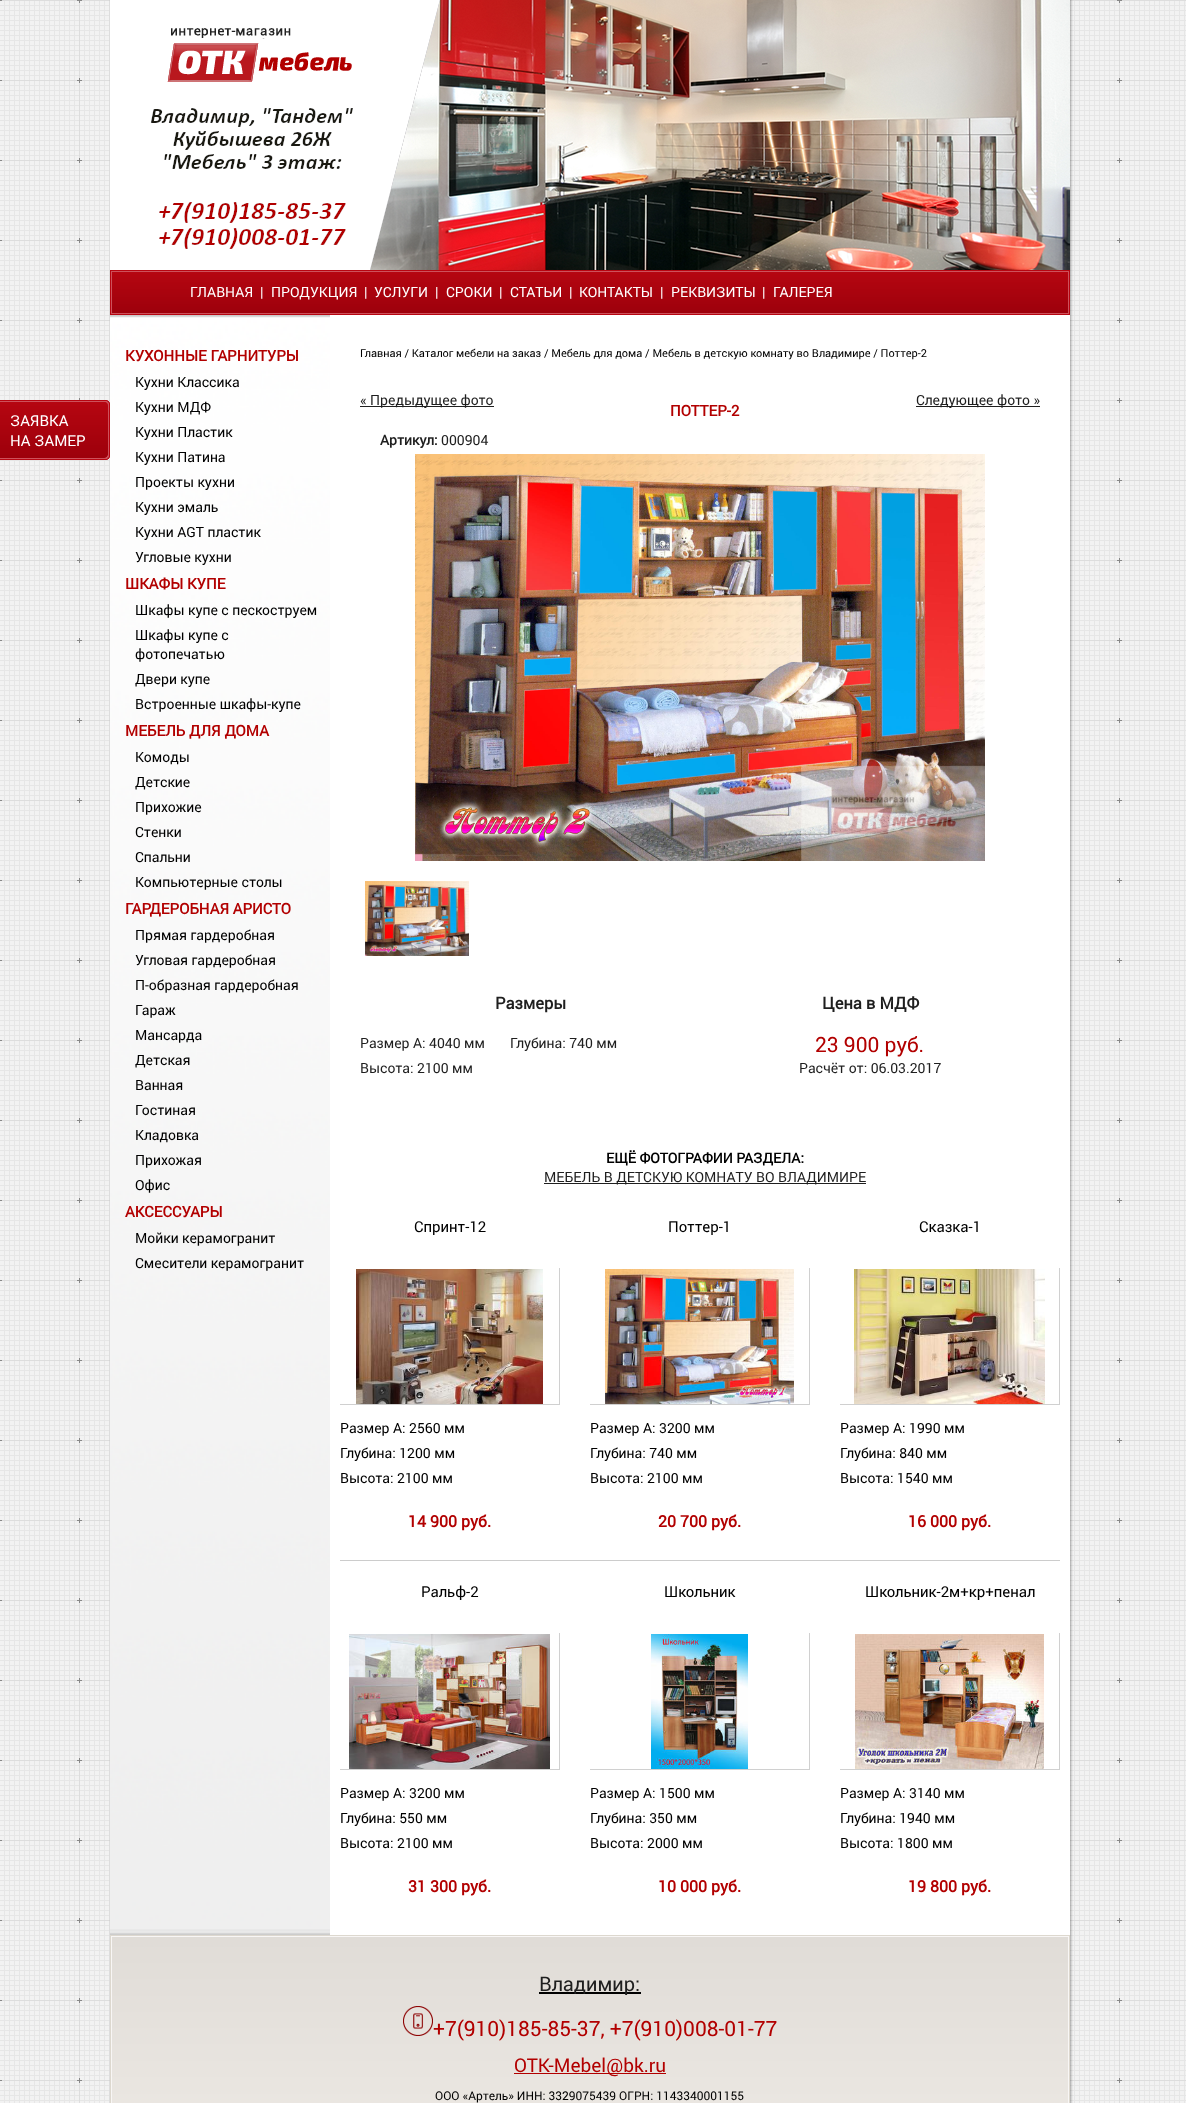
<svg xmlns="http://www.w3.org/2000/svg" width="1186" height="2112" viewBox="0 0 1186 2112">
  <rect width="100%" height="100%" fill="#ffffff"/>
  <image x="0" y="0" width="1186" height="2103" href="img1.png"/>
  <image x="109" y="0" width="964" height="2103" href="img3.png"/>
  <image x="0" y="400" width="110" height="60" href="img2.png"/>
  <text x="10" y="426" font-family="Roboto" font-size="15" fill="#ffffff">ЗАЯВКА</text>
  <text x="10" y="446" font-family="Roboto" font-size="15" fill="#ffffff">НА ЗАМЕР</text>
  <image x="150" y="0" width="920" height="270" href="img4.png"/>
  <image x="110" y="270" width="960" height="45" href="img5.png"/>
  <text x="190" y="297" font-family="Roboto" font-size="14" fill="#ffffff">ГЛАВНАЯ</text>
  <text x="260" y="297" font-family="Roboto" font-size="14" fill="#ffffff">|</text>
  <text x="271" y="297" font-family="Roboto" font-size="14" fill="#ffffff">ПРОДУКЦИЯ</text>
  <text x="364" y="297" font-family="Roboto" font-size="14" fill="#ffffff">|</text>
  <text x="374" y="297" font-family="Roboto" font-size="14" fill="#ffffff">УСЛУГИ</text>
  <text x="435" y="297" font-family="Roboto" font-size="14" fill="#ffffff">|</text>
  <text x="446" y="297" font-family="Roboto" font-size="14" fill="#ffffff">СРОКИ</text>
  <text x="499" y="297" font-family="Roboto" font-size="14" fill="#ffffff">|</text>
  <text x="510" y="297" font-family="Roboto" font-size="14" fill="#ffffff">СТАТЬИ</text>
  <text x="569" y="297" font-family="Roboto" font-size="14" fill="#ffffff">|</text>
  <text x="579" y="297" font-family="Roboto" font-size="14" fill="#ffffff">КОНТАКТЫ</text>
  <text x="660" y="297" font-family="Roboto" font-size="14" fill="#ffffff">|</text>
  <text x="671" y="297" font-family="Roboto" font-size="14" fill="#ffffff">РЕКВИЗИТЫ</text>
  <text x="762" y="297" font-family="Roboto" font-size="14" fill="#ffffff">|</text>
  <text x="773" y="297" font-family="Roboto" font-size="14" fill="#ffffff">ГАЛЕРЕЯ</text>
  <image x="110" y="315" width="220" height="1620" href="img6.png"/>
  <text x="125" y="361" font-family="Roboto" font-size="15" font-weight="bold" fill="#b20000">КУХОННЫЕ ГАРНИТУРЫ</text>
  <text x="135" y="387" font-family="Roboto" font-size="14" fill="#000000">Кухни Классика</text>
  <text x="135" y="412" font-family="Roboto" font-size="14" fill="#000000">Кухни МДФ</text>
  <text x="135" y="437" font-family="Roboto" font-size="14" fill="#000000">Кухни Пластик</text>
  <text x="135" y="462" font-family="Roboto" font-size="14" fill="#000000">Кухни Патина</text>
  <text x="135" y="487" font-family="Roboto" font-size="14" fill="#000000">Проекты кухни</text>
  <text x="135" y="512" font-family="Roboto" font-size="14" fill="#000000">Кухни эмаль</text>
  <text x="135" y="537" font-family="Roboto" font-size="14" fill="#000000">Кухни AGT пластик</text>
  <text x="135" y="562" font-family="Roboto" font-size="14" fill="#000000">Угловые кухни</text>
  <text x="125" y="589" font-family="Roboto" font-size="15" font-weight="bold" fill="#b20000">ШКАФЫ КУПЕ</text>
  <text x="135" y="615" font-family="Roboto" font-size="14" fill="#000000">Шкафы купе с пескоструем</text>
  <text x="135" y="640" font-family="Roboto" font-size="14" fill="#000000">Шкафы купе с</text>
  <text x="135" y="659" font-family="Roboto" font-size="14" fill="#000000">фотопечатью</text>
  <text x="135" y="684" font-family="Roboto" font-size="14" fill="#000000">Двери купе</text>
  <text x="135" y="709" font-family="Roboto" font-size="14" fill="#000000">Встроенные шкафы-купе</text>
  <text x="125" y="736" font-family="Roboto" font-size="15" font-weight="bold" fill="#b20000">МЕБЕЛЬ ДЛЯ ДОМА</text>
  <text x="135" y="762" font-family="Roboto" font-size="14" fill="#000000">Комоды</text>
  <text x="135" y="787" font-family="Roboto" font-size="14" fill="#000000">Детские</text>
  <text x="135" y="812" font-family="Roboto" font-size="14" fill="#000000">Прихожие</text>
  <text x="135" y="837" font-family="Roboto" font-size="14" fill="#000000">Стенки</text>
  <text x="135" y="862" font-family="Roboto" font-size="14" fill="#000000">Спальни</text>
  <text x="135" y="887" font-family="Roboto" font-size="14" fill="#000000">Компьютерные столы</text>
  <text x="125" y="914" font-family="Roboto" font-size="15" font-weight="bold" fill="#b20000">ГАРДЕРОБНАЯ АРИСТО</text>
  <text x="135" y="940" font-family="Roboto" font-size="14" fill="#000000">Прямая гардеробная</text>
  <text x="135" y="965" font-family="Roboto" font-size="14" fill="#000000">Угловая гардеробная</text>
  <text x="135" y="990" font-family="Roboto" font-size="14" fill="#000000">П-образная гардеробная</text>
  <text x="135" y="1015" font-family="Roboto" font-size="14" fill="#000000">Гараж</text>
  <text x="135" y="1040" font-family="Roboto" font-size="14" fill="#000000">Мансарда</text>
  <text x="135" y="1065" font-family="Roboto" font-size="14" fill="#000000">Детская</text>
  <text x="135" y="1090" font-family="Roboto" font-size="14" fill="#000000">Ванная</text>
  <text x="135" y="1115" font-family="Roboto" font-size="14" fill="#000000">Гостиная</text>
  <text x="135" y="1140" font-family="Roboto" font-size="14" fill="#000000">Кладовка</text>
  <text x="135" y="1165" font-family="Roboto" font-size="14" fill="#000000">Прихожая</text>
  <text x="135" y="1190" font-family="Roboto" font-size="14" fill="#000000">Офис</text>
  <text x="125" y="1217" font-family="Roboto" font-size="15" font-weight="bold" fill="#b20000">АКСЕССУАРЫ</text>
  <text x="135" y="1243" font-family="Roboto" font-size="14" fill="#000000">Мойки керамогранит</text>
  <text x="135" y="1268" font-family="Roboto" font-size="14" fill="#000000">Смесители керамогранит</text>
  <text x="360" y="357" font-family="Roboto" font-size="11" fill="#000000">Главная / Каталог мебели на заказ / Мебель для дома / Мебель в детскую комнату во Владимире / Поттер-2</text>
  <rect x="360" y="406" width="134" height="1" fill="#1f1f1f"/>
  <text x="360" y="405" font-family="Roboto" font-size="14" fill="#1f1f1f">« Предыдущее фото</text>
  <rect x="916" y="406" width="124" height="1" fill="#1f1f1f"/>
  <text x="916" y="405" font-family="Roboto" font-size="14" fill="#1f1f1f">Следующее фото »</text>
  <text x="670" y="416" font-family="Roboto" font-size="15" font-weight="bold" fill="#b20000">ПОТТЕР-2</text>
  <text x="380" y="445" font-family="Roboto" font-size="14" font-weight="bold" fill="#1f1f1f">Артикул:</text>
  <text x="441" y="445" font-family="Roboto" font-size="14" fill="#1f1f1f">000904</text>
  <image x="415" y="454" width="570" height="407" href="img7.png"/>
  <image x="365" y="881" width="104" height="75" href="img8.png"/>
  <text x="495" y="1009" font-family="Roboto" font-size="16.5" font-weight="bold" fill="#1f1f1f">Размеры</text>
  <text x="360" y="1048" font-family="Roboto" font-size="14" fill="#1f1f1f">Размер А: 4040 мм</text>
  <text x="510" y="1048" font-family="Roboto" font-size="14" fill="#1f1f1f">Глубина: 740 мм</text>
  <text x="360" y="1073" font-family="Roboto" font-size="14" fill="#1f1f1f">Высота: 2100 мм</text>
  <text x="822" y="1009" font-family="Roboto" font-size="16.5" font-weight="bold" fill="#1f1f1f">Цена в МДФ</text>
  <text x="815" y="1052" font-family="Roboto" font-size="21" fill="#b20000">23 900 руб.</text>
  <text x="799" y="1073" font-family="Roboto" font-size="14" fill="#1f1f1f">Расчёт от: 06.03.2017</text>
  <text x="606" y="1163" font-family="Roboto" font-size="14" font-weight="bold" fill="#000000">ЕЩЁ ФОТОГРАФИИ РАЗДЕЛА:</text>
  <rect x="544" y="1183" width="322" height="1" fill="#1f1f1f"/>
  <text x="544" y="1182" font-family="Roboto" font-size="14" fill="#1f1f1f">МЕБЕЛЬ В ДЕТСКУЮ КОМНАТУ ВО ВЛАДИМИРЕ</text>
  <rect x="340" y="1560" width="720" height="1" fill="#cccccc"/>
  <text x="414" y="1232" font-family="Roboto" font-size="15" fill="#000000">Спринт-12</text>
  <rect x="559" y="1268" width="1" height="137" fill="#d0d0d0"/>
  <rect x="340" y="1404" width="220" height="1" fill="#d0d0d0"/>
  <image x="356" y="1269" width="187" height="135" href="img9.png"/>
  <text x="340" y="1433" font-family="Roboto" font-size="14" fill="#000000">Размер А: 2560 мм</text>
  <text x="340" y="1458" font-family="Roboto" font-size="14" fill="#000000">Глубина: 1200 мм</text>
  <text x="340" y="1483" font-family="Roboto" font-size="14" fill="#000000">Высота: 2100 мм</text>
  <text x="408" y="1527" font-family="Roboto" font-size="16" font-weight="bold" fill="#b20000">14 900 руб.</text>
  <text x="668" y="1232" font-family="Roboto" font-size="15" fill="#000000">Поттер-1</text>
  <rect x="809" y="1268" width="1" height="137" fill="#d0d0d0"/>
  <rect x="590" y="1404" width="220" height="1" fill="#d0d0d0"/>
  <image x="605" y="1269" width="189" height="135" href="img10.png"/>
  <text x="590" y="1433" font-family="Roboto" font-size="14" fill="#000000">Размер А: 3200 мм</text>
  <text x="590" y="1458" font-family="Roboto" font-size="14" fill="#000000">Глубина: 740 мм</text>
  <text x="590" y="1483" font-family="Roboto" font-size="14" fill="#000000">Высота: 2100 мм</text>
  <text x="658" y="1527" font-family="Roboto" font-size="16" font-weight="bold" fill="#b20000">20 700 руб.</text>
  <text x="919" y="1232" font-family="Roboto" font-size="15" fill="#000000">Сказка-1</text>
  <rect x="1059" y="1268" width="1" height="137" fill="#d0d0d0"/>
  <rect x="840" y="1404" width="220" height="1" fill="#d0d0d0"/>
  <image x="854" y="1269" width="191" height="135" href="img11.png"/>
  <text x="840" y="1433" font-family="Roboto" font-size="14" fill="#000000">Размер А: 1990 мм</text>
  <text x="840" y="1458" font-family="Roboto" font-size="14" fill="#000000">Глубина: 840 мм</text>
  <text x="840" y="1483" font-family="Roboto" font-size="14" fill="#000000">Высота: 1540 мм</text>
  <text x="908" y="1527" font-family="Roboto" font-size="16" font-weight="bold" fill="#b20000">16 000 руб.</text>
  <text x="421" y="1597" font-family="Roboto" font-size="15" fill="#000000">Ральф-2</text>
  <rect x="559" y="1633" width="1" height="137" fill="#d0d0d0"/>
  <rect x="340" y="1769" width="220" height="1" fill="#d0d0d0"/>
  <image x="349" y="1634" width="201" height="135" href="img12.png"/>
  <text x="340" y="1798" font-family="Roboto" font-size="14" fill="#000000">Размер А: 3200 мм</text>
  <text x="340" y="1823" font-family="Roboto" font-size="14" fill="#000000">Глубина: 550 мм</text>
  <text x="340" y="1848" font-family="Roboto" font-size="14" fill="#000000">Высота: 2100 мм</text>
  <text x="408" y="1892" font-family="Roboto" font-size="16" font-weight="bold" fill="#b20000">31 300 руб.</text>
  <text x="664" y="1597" font-family="Roboto" font-size="15" fill="#000000">Школьник</text>
  <rect x="809" y="1633" width="1" height="137" fill="#d0d0d0"/>
  <rect x="590" y="1769" width="220" height="1" fill="#d0d0d0"/>
  <image x="651" y="1634" width="97" height="135" href="img13.png"/>
  <text x="590" y="1798" font-family="Roboto" font-size="14" fill="#000000">Размер А: 1500 мм</text>
  <text x="590" y="1823" font-family="Roboto" font-size="14" fill="#000000">Глубина: 350 мм</text>
  <text x="590" y="1848" font-family="Roboto" font-size="14" fill="#000000">Высота: 2000 мм</text>
  <text x="658" y="1892" font-family="Roboto" font-size="16" font-weight="bold" fill="#b20000">10 000 руб.</text>
  <text x="865" y="1597" font-family="Roboto" font-size="15" fill="#000000">Школьник-2м+кр+пенал</text>
  <rect x="1059" y="1633" width="1" height="137" fill="#d0d0d0"/>
  <rect x="840" y="1769" width="220" height="1" fill="#d0d0d0"/>
  <image x="855" y="1634" width="189" height="135" href="img14.png"/>
  <text x="840" y="1798" font-family="Roboto" font-size="14" fill="#000000">Размер А: 3140 мм</text>
  <text x="840" y="1823" font-family="Roboto" font-size="14" fill="#000000">Глубина: 1940 мм</text>
  <text x="840" y="1848" font-family="Roboto" font-size="14" fill="#000000">Высота: 1800 мм</text>
  <text x="908" y="1892" font-family="Roboto" font-size="16" font-weight="bold" fill="#b20000">19 800 руб.</text>
  <image x="110" y="1935" width="960" height="168" href="img15.png"/>
  <rect x="539" y="1992" width="102" height="2" fill="#000000"/>
  <text x="539" y="1991" font-family="Roboto" font-size="20" fill="#1f1f1f">Владимир:</text>
  <image x="403" y="2006" width="30" height="30" href="img16.png"/>
  <text x="433" y="2036" font-family="Roboto" font-size="21" fill="#b20000">+7(910)185-85-37, +7(910)008-01-77</text>
  <rect x="514" y="2073" width="152" height="1" fill="#b20000"/>
  <text x="514" y="2072" font-family="Roboto" font-size="19" fill="#b20000">OTK-Mebel@bk.ru</text>
  <text x="435" y="2100" font-family="Roboto" font-size="12" fill="#000000">ООО «Артель» ИНН: 3329075439 ОГРН: 1143340001155</text>
</svg>
